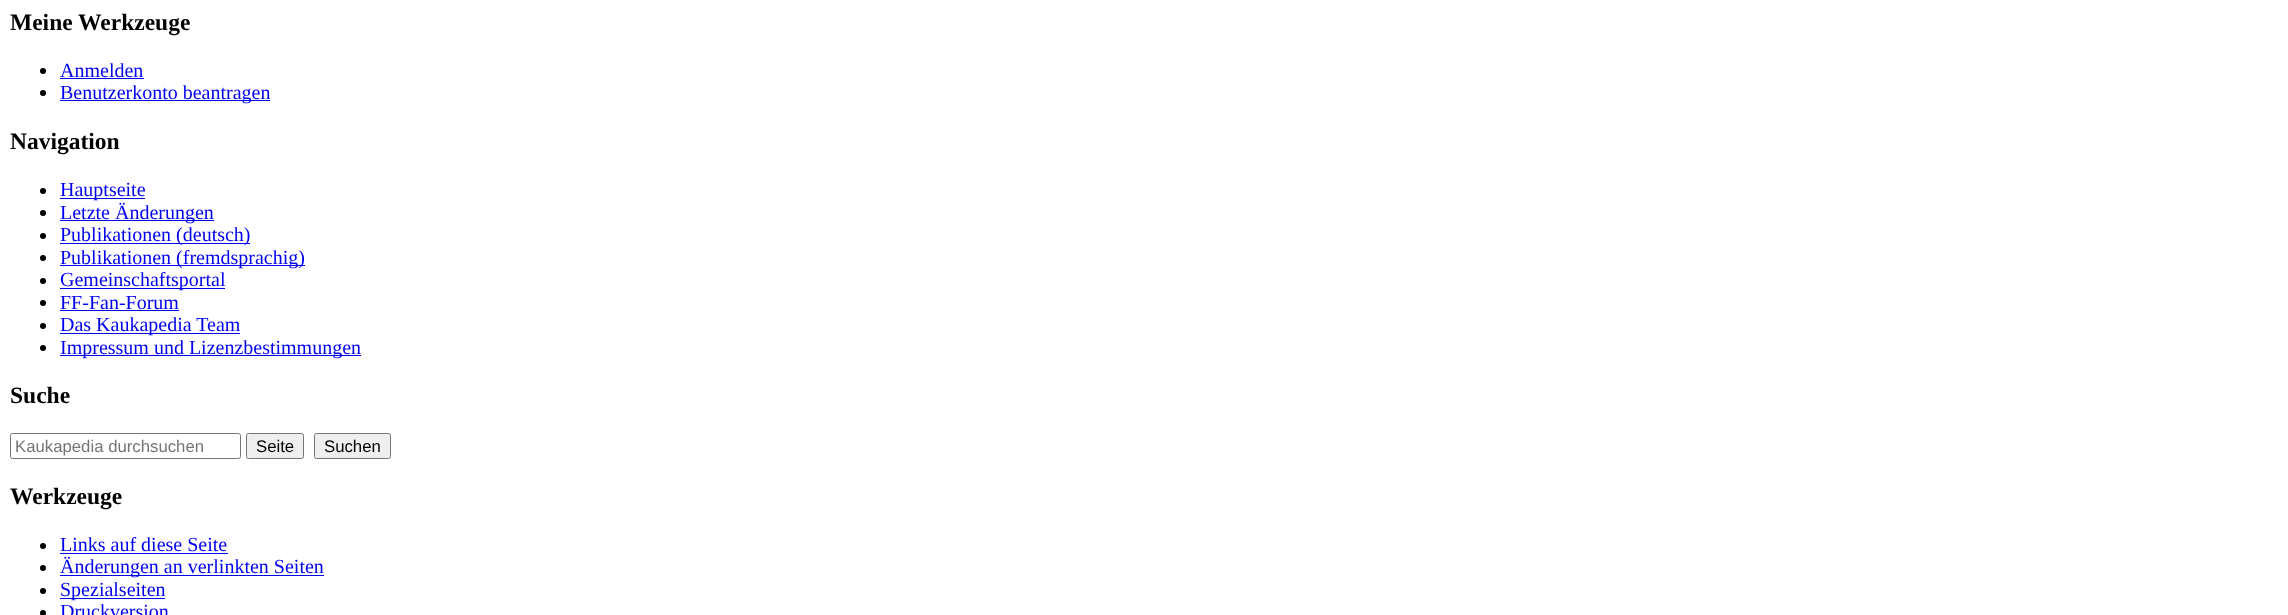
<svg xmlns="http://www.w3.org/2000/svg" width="2288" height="615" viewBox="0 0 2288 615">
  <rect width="100%" height="100%" fill="#ffffff"/>
  <text x="10" y="30" font-family="Liberation Serif" font-size="23.5" font-weight="bold" fill="#000000">Meine Werkzeuge</text>
  <circle cx="43" cy="71" r="3" fill="#000000"/>
  <text x="60" y="77" font-family="Liberation Serif" font-size="20" fill="#0000ee">Anmelden</text>
  <rect x="60" y="78" width="84" height="1" fill="#0000ee"/>
  <circle cx="43" cy="93" r="3" fill="#000000"/>
  <rect x="60" y="100" width="210" height="1" fill="#0000ee"/>
  <text x="60" y="99" font-family="Liberation Serif" font-size="20" fill="#0000ee">Benutzerkonto beantragen</text>
  <text x="10" y="149" font-family="Liberation Serif" font-size="23.5" font-weight="bold" fill="#000000">Navigation</text>
  <circle cx="43" cy="191" r="3" fill="#000000"/>
  <rect x="60" y="198" width="85" height="1" fill="#0000ee"/>
  <text x="60" y="196" font-family="Liberation Serif" font-size="20" fill="#0000ee">Hauptseite</text>
  <circle cx="43" cy="213" r="3" fill="#000000"/>
  <rect x="60" y="220" width="154" height="1" fill="#0000ee"/>
  <text x="60" y="219" font-family="Liberation Serif" font-size="20" fill="#0000ee">Letzte Änderungen</text>
  <circle cx="43" cy="236" r="3" fill="#000000"/>
  <rect x="60" y="243" width="190" height="1" fill="#0000ee"/>
  <text x="60" y="241" font-family="Liberation Serif" font-size="20" fill="#0000ee">Publikationen (deutsch)</text>
  <circle cx="43" cy="258" r="3" fill="#000000"/>
  <rect x="60" y="265" width="245" height="1" fill="#0000ee"/>
  <text x="60" y="264" font-family="Liberation Serif" font-size="20" fill="#0000ee">Publikationen (fremdsprachig)</text>
  <circle cx="43" cy="281" r="3" fill="#000000"/>
  <rect x="60" y="288" width="165" height="1" fill="#0000ee"/>
  <text x="60" y="286" font-family="Liberation Serif" font-size="20" fill="#0000ee">Gemeinschaftsportal</text>
  <circle cx="43" cy="303" r="3" fill="#000000"/>
  <text x="60" y="309" font-family="Liberation Serif" font-size="20" fill="#0000ee">FF-Fan-Forum</text>
  <rect x="60" y="310" width="119" height="1" fill="#0000ee"/>
  <circle cx="43" cy="326" r="3" fill="#000000"/>
  <rect x="60" y="333" width="180" height="1" fill="#0000ee"/>
  <text x="60" y="331" font-family="Liberation Serif" font-size="20" fill="#0000ee">Das Kaukapedia Team</text>
  <circle cx="43" cy="348" r="3" fill="#000000"/>
  <rect x="60" y="355" width="301" height="1" fill="#0000ee"/>
  <text x="60" y="354" font-family="Liberation Serif" font-size="20" fill="#0000ee">Impressum und Lizenzbestimmungen</text>
  <text x="10" y="403" font-family="Liberation Serif" font-size="23.5" font-weight="bold" fill="#000000">Suche</text>
  <rect x="10.5" y="433.5" width="230" height="25" rx="2" fill="none" stroke="#767676"/>
  <text x="15" y="452" font-family="Liberation Sans" font-size="16.75" fill="#757575">Kaukapedia durchsuchen</text>
  <rect x="246.5" y="433.5" width="57" height="25" rx="2" fill="#efefef" stroke="#767676"/>
  <text x="256" y="452" font-family="Liberation Sans" font-size="16.75" fill="#000000">Seite</text>
  <rect x="314.5" y="433.5" width="76" height="25" rx="2" fill="#efefef" stroke="#767676"/>
  <text x="324" y="452" font-family="Liberation Sans" font-size="16.75" fill="#000000">Suchen</text>
  <text x="10" y="504" font-family="Liberation Serif" font-size="23.5" font-weight="bold" fill="#000000">Werkzeuge</text>
  <circle cx="43" cy="546" r="3" fill="#000000"/>
  <text x="60" y="551" font-family="Liberation Serif" font-size="20" fill="#0000ee">Links auf diese Seite</text>
  <rect x="60" y="553" width="168" height="1" fill="#0000ee"/>
  <circle cx="43" cy="568" r="3" fill="#000000"/>
  <rect x="60" y="575" width="264" height="1" fill="#0000ee"/>
  <text x="60" y="573" font-family="Liberation Serif" font-size="20" fill="#0000ee">Änderungen an verlinkten Seiten</text>
  <circle cx="43" cy="591" r="3" fill="#000000"/>
  <rect x="60" y="598" width="105" height="1" fill="#0000ee"/>
  <text x="60" y="596" font-family="Liberation Serif" font-size="20" fill="#0000ee">Spezialseiten</text>
  <circle cx="43" cy="613" r="3" fill="#000000"/>
  <text x="60" y="618" font-family="Liberation Serif" font-size="20" fill="#0000ee">Druckversion</text>
</svg>
